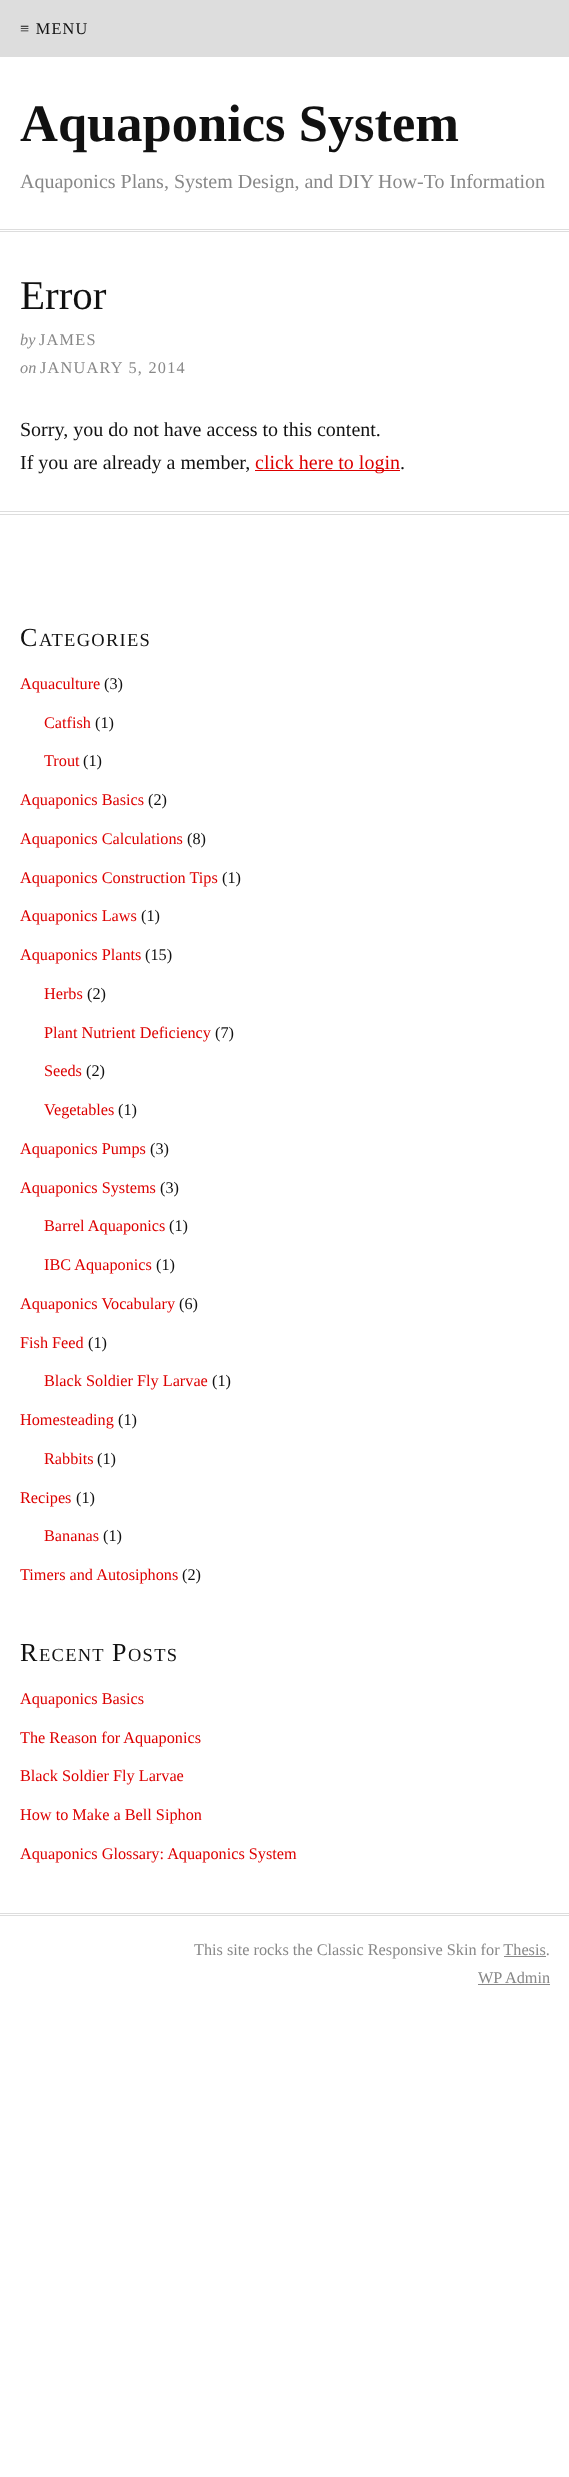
<svg xmlns="http://www.w3.org/2000/svg" width="569" height="2477" viewBox="0 0 569 2477">
  <rect width="100%" height="100%" fill="#ffffff"/>
  <rect x="0" y="0" width="569" height="57" fill="#dddddd"/>
  <text x="20" y="34" font-family="Liberation Serif" font-size="16.25" letter-spacing="1.25" fill="#111111">≡ MENU</text>
  <rect x="0" y="229" width="569" height="1" fill="#dddddd"/>
  <rect x="0" y="231" width="569" height="1" fill="#dddddd"/>
  <text x="20" y="141" font-family="Liberation Serif" font-size="52.5" font-weight="bold" fill="#111111">Aquaponics System</text>
  <text x="20" y="188" font-family="Liberation Serif" font-size="20" fill="#888888">Aquaponics Plans, System Design, and DIY How-To Information</text>
  <text x="20" y="309" font-family="Liberation Serif" font-size="41" fill="#111111">Error</text>
  <text x="20" y="345" font-family="Liberation Serif" font-size="16.25" font-style="italic" fill="#888888">by</text>
  <text x="39" y="345" font-family="Liberation Serif" font-size="16.25" letter-spacing="1.25" fill="#888888">JAMES</text>
  <text x="20" y="373" font-family="Liberation Serif" font-size="16.25" font-style="italic" fill="#888888">on</text>
  <text x="40" y="373" font-family="Liberation Serif" font-size="16.25" letter-spacing="1.25" fill="#888888">JANUARY 5, 2014</text>
  <text x="20" y="436" font-family="Liberation Serif" font-size="20" fill="#111111">Sorry, you do not have access to this content.</text>
  <text x="20" y="469" font-family="Liberation Serif" font-size="20" fill="#111111">If you are already a member,</text>
  <rect x="255" y="470" width="145" height="1" fill="#dd0000"/>
  <text x="255" y="469" font-family="Liberation Serif" font-size="20" fill="#dd0000">click here to login</text>
  <text x="400" y="469" font-family="Liberation Serif" font-size="20" fill="#111111">.</text>
  <rect x="0" y="511" width="569" height="1" fill="#dddddd"/>
  <rect x="0" y="514" width="569" height="1" fill="#dddddd"/>
  <text x="20" y="646" font-family="Liberation Serif" font-size="26" letter-spacing="1.25" fill="#111111">C</text>
  <text x="39" y="646" font-family="Liberation Serif" font-size="18.5" letter-spacing="1.25" fill="#111111">ATEGORIES</text>
  <text x="20" y="689" font-family="Liberation Serif" font-size="16.25" fill="#dd0000">Aquaculture</text>
  <text x="104" y="689" font-family="Liberation Serif" font-size="16.25" fill="#111111">(3)</text>
  <text x="44" y="728" font-family="Liberation Serif" font-size="16.25" fill="#dd0000">Catfish</text>
  <text x="95" y="728" font-family="Liberation Serif" font-size="16.25" fill="#111111">(1)</text>
  <text x="44" y="766" font-family="Liberation Serif" font-size="16.25" fill="#dd0000">Trout</text>
  <text x="83" y="766" font-family="Liberation Serif" font-size="16.25" fill="#111111">(1)</text>
  <text x="20" y="805" font-family="Liberation Serif" font-size="16.25" fill="#dd0000">Aquaponics Basics</text>
  <text x="148" y="805" font-family="Liberation Serif" font-size="16.25" fill="#111111">(2)</text>
  <text x="20" y="844" font-family="Liberation Serif" font-size="16.25" fill="#dd0000">Aquaponics Calculations</text>
  <text x="187" y="844" font-family="Liberation Serif" font-size="16.25" fill="#111111">(8)</text>
  <text x="20" y="883" font-family="Liberation Serif" font-size="16.25" fill="#dd0000">Aquaponics Construction Tips</text>
  <text x="222" y="883" font-family="Liberation Serif" font-size="16.25" fill="#111111">(1)</text>
  <text x="20" y="921" font-family="Liberation Serif" font-size="16.25" fill="#dd0000">Aquaponics Laws</text>
  <text x="141" y="921" font-family="Liberation Serif" font-size="16.25" fill="#111111">(1)</text>
  <text x="20" y="960" font-family="Liberation Serif" font-size="16.25" fill="#dd0000">Aquaponics Plants</text>
  <text x="145" y="960" font-family="Liberation Serif" font-size="16.25" fill="#111111">(15)</text>
  <text x="44" y="999" font-family="Liberation Serif" font-size="16.25" fill="#dd0000">Herbs</text>
  <text x="87" y="999" font-family="Liberation Serif" font-size="16.25" fill="#111111">(2)</text>
  <text x="44" y="1038" font-family="Liberation Serif" font-size="16.25" fill="#dd0000">Plant Nutrient Deficiency</text>
  <text x="215" y="1038" font-family="Liberation Serif" font-size="16.25" fill="#111111">(7)</text>
  <text x="44" y="1076" font-family="Liberation Serif" font-size="16.25" fill="#dd0000">Seeds</text>
  <text x="86" y="1076" font-family="Liberation Serif" font-size="16.25" fill="#111111">(2)</text>
  <text x="44" y="1115" font-family="Liberation Serif" font-size="16.25" fill="#dd0000">Vegetables</text>
  <text x="118" y="1115" font-family="Liberation Serif" font-size="16.25" fill="#111111">(1)</text>
  <text x="20" y="1154" font-family="Liberation Serif" font-size="16.25" fill="#dd0000">Aquaponics Pumps</text>
  <text x="150" y="1154" font-family="Liberation Serif" font-size="16.25" fill="#111111">(3)</text>
  <text x="20" y="1193" font-family="Liberation Serif" font-size="16.25" fill="#dd0000">Aquaponics Systems</text>
  <text x="160" y="1193" font-family="Liberation Serif" font-size="16.25" fill="#111111">(3)</text>
  <text x="44" y="1231" font-family="Liberation Serif" font-size="16.25" fill="#dd0000">Barrel Aquaponics</text>
  <text x="169" y="1231" font-family="Liberation Serif" font-size="16.25" fill="#111111">(1)</text>
  <text x="44" y="1270" font-family="Liberation Serif" font-size="16.25" fill="#dd0000">IBC Aquaponics</text>
  <text x="156" y="1270" font-family="Liberation Serif" font-size="16.25" fill="#111111">(1)</text>
  <text x="20" y="1309" font-family="Liberation Serif" font-size="16.25" fill="#dd0000">Aquaponics Vocabulary</text>
  <text x="179" y="1309" font-family="Liberation Serif" font-size="16.25" fill="#111111">(6)</text>
  <text x="20" y="1348" font-family="Liberation Serif" font-size="16.25" fill="#dd0000">Fish Feed</text>
  <text x="88" y="1348" font-family="Liberation Serif" font-size="16.25" fill="#111111">(1)</text>
  <text x="44" y="1386" font-family="Liberation Serif" font-size="16.25" fill="#dd0000">Black Soldier Fly Larvae</text>
  <text x="212" y="1386" font-family="Liberation Serif" font-size="16.25" fill="#111111">(1)</text>
  <text x="20" y="1425" font-family="Liberation Serif" font-size="16.25" fill="#dd0000">Homesteading</text>
  <text x="118" y="1425" font-family="Liberation Serif" font-size="16.25" fill="#111111">(1)</text>
  <text x="44" y="1464" font-family="Liberation Serif" font-size="16.25" fill="#dd0000">Rabbits</text>
  <text x="97" y="1464" font-family="Liberation Serif" font-size="16.25" fill="#111111">(1)</text>
  <text x="20" y="1503" font-family="Liberation Serif" font-size="16.25" fill="#dd0000">Recipes</text>
  <text x="76" y="1503" font-family="Liberation Serif" font-size="16.25" fill="#111111">(1)</text>
  <text x="44" y="1541" font-family="Liberation Serif" font-size="16.25" fill="#dd0000">Bananas</text>
  <text x="103" y="1541" font-family="Liberation Serif" font-size="16.25" fill="#111111">(1)</text>
  <text x="20" y="1580" font-family="Liberation Serif" font-size="16.25" fill="#dd0000">Timers and Autosiphons</text>
  <text x="182" y="1580" font-family="Liberation Serif" font-size="16.25" fill="#111111">(2)</text>
  <text x="20" y="1661" font-family="Liberation Serif" font-size="26" letter-spacing="1.25" fill="#111111">R</text>
  <text x="39" y="1661" font-family="Liberation Serif" font-size="18.5" letter-spacing="1.25" fill="#111111">ECENT</text>
  <text x="112" y="1661" font-family="Liberation Serif" font-size="26" letter-spacing="1.25" fill="#111111">P</text>
  <text x="128" y="1661" font-family="Liberation Serif" font-size="18.5" letter-spacing="1.25" fill="#111111">OSTS</text>
  <text x="20" y="1704" font-family="Liberation Serif" font-size="16.25" fill="#dd0000">Aquaponics Basics</text>
  <text x="20" y="1743" font-family="Liberation Serif" font-size="16.25" fill="#dd0000">The Reason for Aquaponics</text>
  <text x="20" y="1781" font-family="Liberation Serif" font-size="16.25" fill="#dd0000">Black Soldier Fly Larvae</text>
  <text x="20" y="1820" font-family="Liberation Serif" font-size="16.25" fill="#dd0000">How to Make a Bell Siphon</text>
  <text x="20" y="1859" font-family="Liberation Serif" font-size="16.25" fill="#dd0000">Aquaponics Glossary: Aquaponics System</text>
  <rect x="0" y="1913" width="569" height="1" fill="#dddddd"/>
  <rect x="0" y="1915" width="569" height="1" fill="#dddddd"/>
  <text x="194" y="1955" font-family="Liberation Serif" font-size="16.25" fill="#888888">This site rocks the Classic Responsive Skin for Thesis.</text>
  <rect x="504" y="1956" width="42" height="1" fill="#888888"/>
  <text x="478" y="1983" font-family="Liberation Serif" font-size="16.25" fill="#888888">WP</text>
  <rect x="478" y="1984" width="72" height="1" fill="#888888"/>
  <text x="505" y="1983" font-family="Liberation Serif" font-size="16.25" fill="#888888">Admin</text>
</svg>
